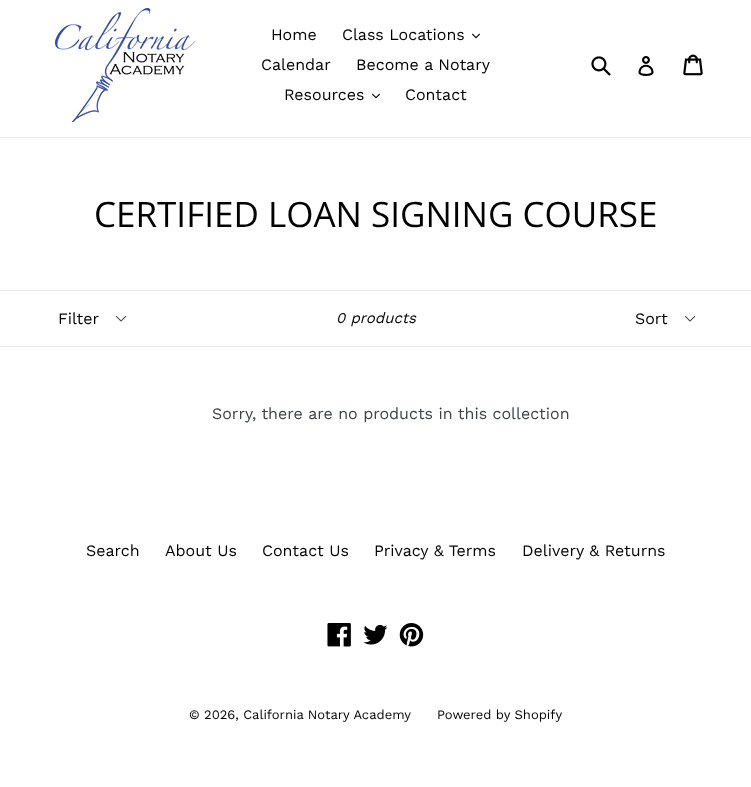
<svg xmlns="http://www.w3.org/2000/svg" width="751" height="787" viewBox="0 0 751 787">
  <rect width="100%" height="100%" fill="#ffffff"/>
  <rect x="0" y="137" width="751" height="1" fill="#e8e9eb"/>
  <image x="55" y="8" width="140" height="114" href="img1.png"/>
  <text x="271" y="40" font-family="Work Sans" font-size="16" fill="#000000">Home</text>
  <text x="342" y="40" font-family="Work Sans" font-size="16" fill="#000000">Class Locations</text>
  <image x="472" y="33" width="8" height="6" href="img2.png"/>
  <text x="261" y="70" font-family="Work Sans" font-size="16" fill="#000000">Calendar</text>
  <text x="356" y="70" font-family="Work Sans" font-size="16" fill="#000000">Become a Notary</text>
  <text x="284" y="100" font-family="Work Sans" font-size="16" fill="#000000">Resources</text>
  <image x="372" y="93" width="8" height="6" href="img2.png"/>
  <text x="405" y="100" font-family="Work Sans" font-size="16" fill="#000000">Contact</text>
  <image x="591" y="56" width="20" height="20" href="img3.png"/>
  <image x="638" y="56" width="16" height="20" href="img4.png"/>
  <image x="683" y="54" width="20" height="22" href="img5.png"/>
  <text x="94" y="227" font-family="Open Sans" font-size="35" fill="#000000">CERTIFIED LOAN SIGNING COURSE</text>
  <rect x="0" y="290" width="751" height="1" fill="#e8e9eb"/>
  <rect x="0" y="346" width="751" height="1" fill="#e8e9eb"/>
  <image x="115" y="315" width="12" height="7" href="img6.png"/>
  <text x="58" y="324" font-family="Work Sans" font-size="16" fill="#000000">Filter</text>
  <text x="336" y="323" font-family="Work Sans" font-size="15" font-style="italic" fill="#000000">0 products</text>
  <image x="684" y="315" width="12" height="7" href="img6.png"/>
  <text x="635" y="324" font-family="Work Sans" font-size="16" fill="#000000">Sort</text>
  <text x="212" y="419" font-family="Work Sans" font-size="16" fill="#3d4246">Sorry, there are no products in this collection</text>
  <text x="86" y="556" font-family="Work Sans" font-size="16" fill="#000000">Search</text>
  <text x="165" y="556" font-family="Work Sans" font-size="16" fill="#000000">About Us</text>
  <text x="262" y="556" font-family="Work Sans" font-size="16" fill="#000000">Contact Us</text>
  <text x="374" y="556" font-family="Work Sans" font-size="16" fill="#000000">Privacy &amp; Terms</text>
  <text x="522" y="556" font-family="Work Sans" font-size="16" fill="#000000">Delivery &amp; Returns</text>
  <image x="327" y="623" width="24" height="24" href="img7.png"/>
  <image x="363" y="625" width="25" height="20" href="img8.png"/>
  <image x="399" y="623" width="25" height="24" href="img9.png"/>
  <text x="189" y="719" font-family="Work Sans" font-size="13" fill="#000000">© 2026, California Notary Academy</text>
  <text x="437" y="719" font-family="Work Sans" font-size="13" fill="#000000">Powered by Shopify</text>
</svg>
